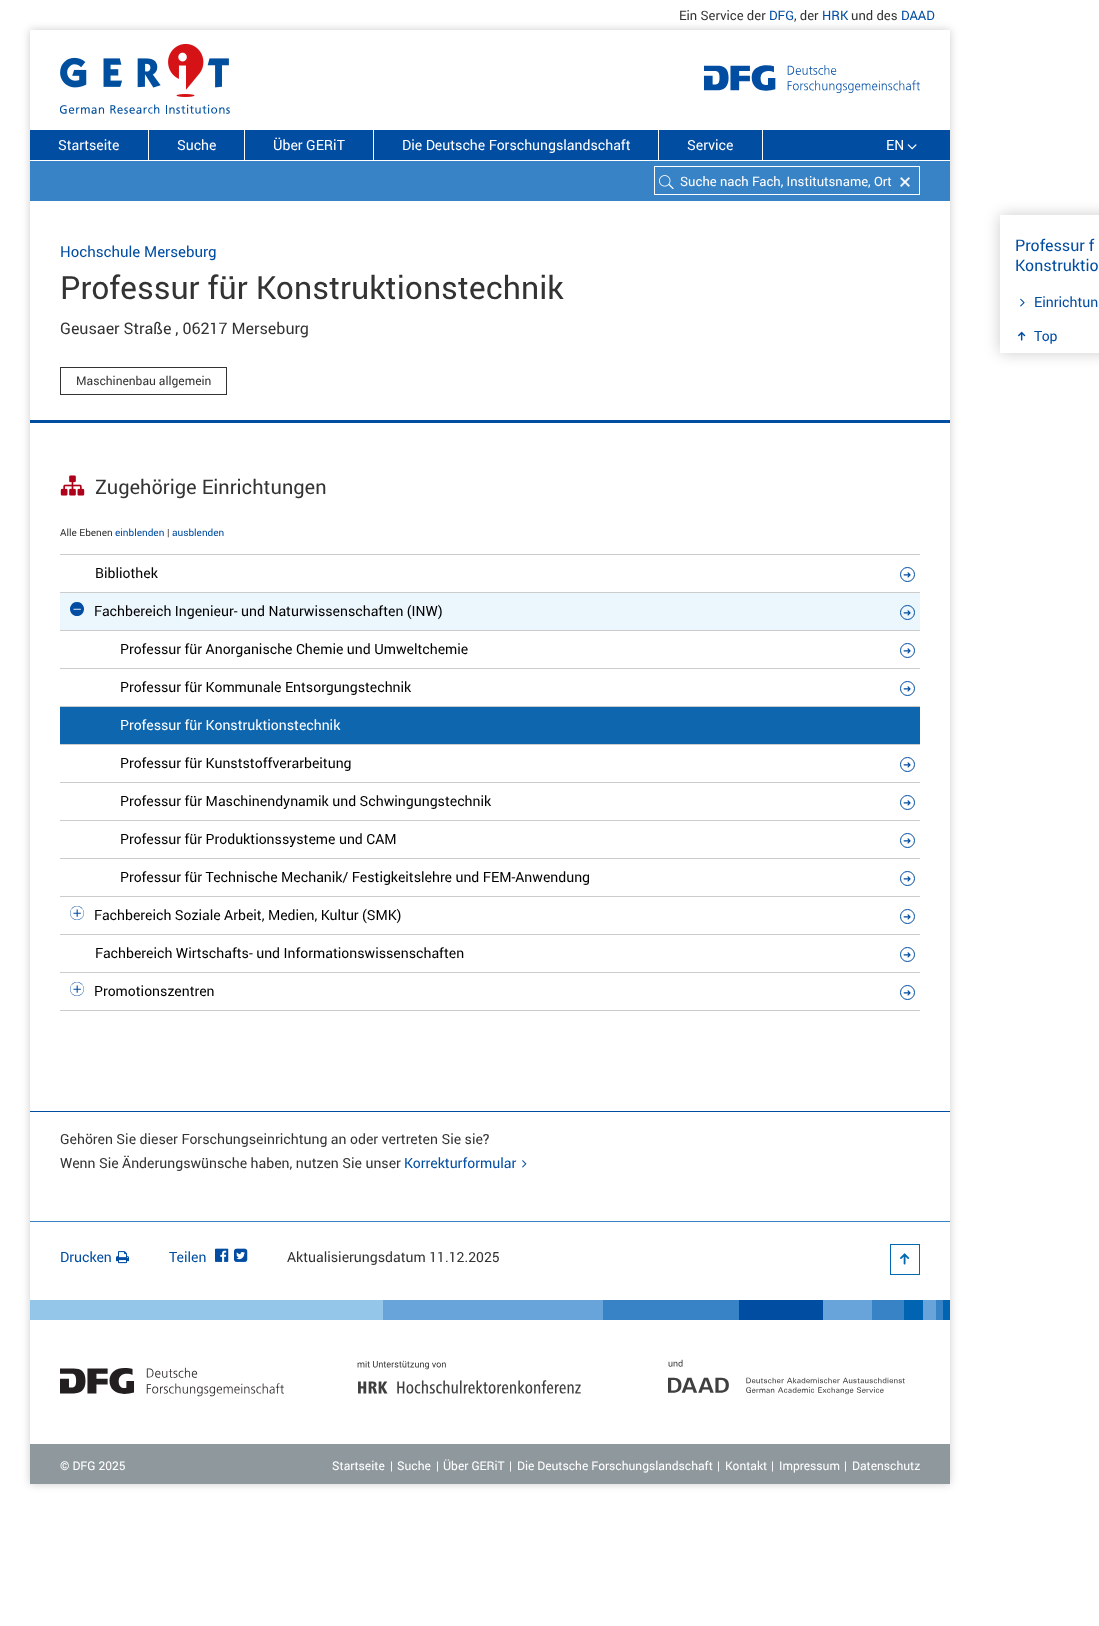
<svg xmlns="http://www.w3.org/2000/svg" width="1099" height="1626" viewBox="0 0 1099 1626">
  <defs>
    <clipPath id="clip1"><path d="M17 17H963V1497H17ZM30 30H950V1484H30Z" clip-rule="evenodd"/></clipPath>
    <filter id="blur1" x="-50%" y="-200%" width="200%" height="500%"><feGaussianBlur stdDeviation="4"/></filter>
    <clipPath id="clip2"><path d="M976 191H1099V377H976ZM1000 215H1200V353H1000Z" clip-rule="evenodd"/></clipPath>
    <filter id="blur2" x="-50%" y="-200%" width="200%" height="500%"><feGaussianBlur stdDeviation="7.5"/></filter>
  </defs>
  <rect width="100%" height="100%" fill="#ffffff"/>
  <g clip-path="url(#clip1)">
    <rect x="30" y="30" width="920" height="1454" fill="#000000" fill-opacity="0.2" filter="url(#blur1)"/>
  </g>
  <text x="679" y="20" font-family="roboto" font-size="13" fill="#333333">Ein Service der</text>
  <text x="769" y="20" font-family="roboto" font-size="13" fill="#004da2">DFG</text>
  <text x="794" y="20" font-family="roboto" font-size="13" fill="#333333">, der</text>
  <text x="822" y="20" font-family="roboto" font-size="13" fill="#004da2">HRK</text>
  <text x="851" y="20" font-family="roboto" font-size="13" fill="#333333">und des</text>
  <text x="901" y="20" font-family="roboto" font-size="13" fill="#004da2">DAAD</text>
  <image x="60" y="43" width="170" height="71" href="img1.png"/>
  <image x="704" y="65" width="216" height="28" href="img2.png"/>
  <rect x="30" y="130" width="920" height="30" fill="#004da2"/>
  <rect x="148" y="130" width="1" height="30" fill="#ffffff"/>
  <text x="58" y="150" font-family="roboto" font-size="14" fill="#ffffff">Startseite</text>
  <rect x="244" y="130" width="1" height="30" fill="#ffffff"/>
  <text x="177" y="150" font-family="roboto" font-size="14" fill="#ffffff">Suche</text>
  <rect x="373" y="130" width="1" height="30" fill="#ffffff"/>
  <text x="273" y="150" font-family="roboto" font-size="14" fill="#ffffff">Über GERiT</text>
  <rect x="658" y="130" width="1" height="30" fill="#ffffff"/>
  <text x="402" y="150" font-family="roboto" font-size="14" fill="#ffffff">Die Deutsche Forschungslandschaft</text>
  <rect x="762" y="130" width="1" height="30" fill="#ffffff"/>
  <text x="687" y="150" font-family="roboto" font-size="14" fill="#ffffff">Service</text>
  <text x="886" y="150" font-family="roboto" font-size="14" fill="#ffffff">EN</text>
  <image x="907" y="144" width="10" height="6" href="img3.png"/>
  <rect x="30" y="161" width="920" height="40" fill="#3883c5"/>
  <rect x="654.5" y="166.5" width="265" height="28" fill="none" stroke="#ffffff"/>
  <image x="659" y="175" width="15" height="14" href="img4.png"/>
  <text x="680" y="186" font-family="roboto" font-size="13" fill="#ffffff">Suche nach Fach, Institutsname, Ort</text>
  <image x="900" y="177" width="10" height="10" href="img5.png"/>
  <text x="60" y="257" font-family="roboto" font-size="15" fill="#004da2">Hochschule Merseburg</text>
  <text x="60" y="299" font-family="roboto" font-size="32" fill="#333333">Professur für Konstruktionstechnik</text>
  <text x="60" y="334" font-family="roboto" font-size="16" fill="#333333">Geusaer Straße , 06217 Merseburg</text>
  <rect x="60.5" y="367.5" width="166" height="27" fill="none" stroke="#333333"/>
  <text x="76" y="385" font-family="roboto" font-size="12" fill="#333333">Maschinenbau allgemein</text>
  <g clip-path="url(#clip2)">
    <rect x="1000" y="215" width="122" height="138" fill="#000000" fill-opacity="0.2" filter="url(#blur2)"/>
  </g>
  <text x="1015" y="251" font-family="roboto" font-size="16" fill="#004da2">Professur f</text>
  <text x="1015" y="271" font-family="roboto" font-size="16" fill="#004da2">Konstruktio</text>
  <image x="1020" y="298" width="5" height="9" href="img6.png"/>
  <text x="1034" y="307" font-family="roboto" font-size="14" fill="#004da2">Einrichtun</text>
  <image x="1018" y="331" width="8" height="10" href="img7.png"/>
  <text x="1034" y="341" font-family="roboto" font-size="14" fill="#004da2">Top</text>
  <rect x="30" y="420" width="920" height="3" fill="#004da2"/>
  <image x="60" y="475" width="25" height="21" href="img8.png"/>
  <text x="95" y="494" font-family="roboto" font-size="20" fill="#333333">Zugehörige Einrichtungen</text>
  <text x="60" y="536" font-family="roboto" font-size="10" fill="#333333">Alle Ebenen</text>
  <text x="115" y="536" font-family="roboto" font-size="10" fill="#004da2">einblenden</text>
  <text x="167" y="536" font-family="roboto" font-size="10" fill="#333333">|</text>
  <text x="172" y="536" font-family="roboto" font-size="10" fill="#004da2">ausblenden</text>
  <rect x="60" y="554" width="860" height="1" fill="#cccccc"/>
  <rect x="60" y="592" width="860" height="1" fill="#cccccc"/>
  <text x="95" y="578" font-family="roboto" font-size="14" fill="#000000">Bibliothek</text>
  <circle cx="907.5" cy="574.5" r="7" fill="none" stroke="#004da2"/>
  <text x="903" y="578" font-family="DejaVu Sans" font-size="10" fill="#004da2">➜</text>
  <rect x="60" y="896" width="860" height="1" fill="#cccccc"/>
  <rect x="60" y="593" width="860" height="37" fill="#ecf6fd"/>
  <text x="70" y="616" font-family="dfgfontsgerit" font-size="14" fill="#004da2">ऀ</text>
  <text x="94" y="616" font-family="roboto" font-size="14" fill="#000000">Fachbereich Ingenieur- und Naturwissenschaften (INW)</text>
  <circle cx="907.5" cy="612.5" r="7" fill="none" stroke="#004da2"/>
  <text x="903" y="616" font-family="DejaVu Sans" font-size="10" fill="#004da2">➜</text>
  <rect x="60" y="630" width="860" height="1" fill="#cccccc"/>
  <rect x="60" y="668" width="860" height="1" fill="#cccccc"/>
  <text x="120" y="654" font-family="roboto" font-size="14" fill="#000000">Professur für Anorganische Chemie und Umweltchemie</text>
  <circle cx="907.5" cy="650.5" r="7" fill="none" stroke="#004da2"/>
  <text x="903" y="654" font-family="DejaVu Sans" font-size="10" fill="#004da2">➜</text>
  <rect x="60" y="706" width="860" height="1" fill="#cccccc"/>
  <text x="120" y="692" font-family="roboto" font-size="14" fill="#000000">Professur für Kommunale Entsorgungstechnik</text>
  <circle cx="907.5" cy="688.5" r="7" fill="none" stroke="#004da2"/>
  <text x="903" y="692" font-family="DejaVu Sans" font-size="10" fill="#004da2">➜</text>
  <rect x="60" y="744" width="860" height="1" fill="#cccccc"/>
  <rect x="60" y="707" width="860" height="37" fill="#0e66af"/>
  <text x="120" y="730" font-family="roboto" font-size="14" fill="#ffffff">Professur für Konstruktionstechnik</text>
  <rect x="60" y="782" width="860" height="1" fill="#cccccc"/>
  <text x="120" y="768" font-family="roboto" font-size="14" fill="#000000">Professur für Kunststoffverarbeitung</text>
  <circle cx="907.5" cy="764.5" r="7" fill="none" stroke="#004da2"/>
  <text x="903" y="768" font-family="DejaVu Sans" font-size="10" fill="#004da2">➜</text>
  <rect x="60" y="820" width="860" height="1" fill="#cccccc"/>
  <text x="120" y="806" font-family="roboto" font-size="14" fill="#000000">Professur für Maschinendynamik und Schwingungstechnik</text>
  <circle cx="907.5" cy="802.5" r="7" fill="none" stroke="#004da2"/>
  <text x="903" y="806" font-family="DejaVu Sans" font-size="10" fill="#004da2">➜</text>
  <rect x="60" y="858" width="860" height="1" fill="#cccccc"/>
  <text x="120" y="844" font-family="roboto" font-size="14" fill="#000000">Professur für Produktionssysteme und CAM</text>
  <circle cx="907.5" cy="840.5" r="7" fill="none" stroke="#004da2"/>
  <text x="903" y="844" font-family="DejaVu Sans" font-size="10" fill="#004da2">➜</text>
  <text x="120" y="882" font-family="roboto" font-size="14" fill="#000000">Professur für Technische Mechanik/ Festigkeitslehre und FEM-Anwendung</text>
  <circle cx="907.5" cy="878.5" r="7" fill="none" stroke="#004da2"/>
  <text x="903" y="882" font-family="DejaVu Sans" font-size="10" fill="#004da2">➜</text>
  <rect x="60" y="934" width="860" height="1" fill="#cccccc"/>
  <text x="70" y="920" font-family="dfgfontsgerit" font-size="14" fill="#004da2">ः</text>
  <text x="94" y="920" font-family="roboto" font-size="14" fill="#000000">Fachbereich Soziale Arbeit, Medien, Kultur (SMK)</text>
  <circle cx="907.5" cy="916.5" r="7" fill="none" stroke="#004da2"/>
  <text x="903" y="920" font-family="DejaVu Sans" font-size="10" fill="#004da2">➜</text>
  <rect x="60" y="972" width="860" height="1" fill="#cccccc"/>
  <text x="95" y="958" font-family="roboto" font-size="14" fill="#000000">Fachbereich Wirtschafts- und Informationswissenschaften</text>
  <circle cx="907.5" cy="954.5" r="7" fill="none" stroke="#004da2"/>
  <text x="903" y="958" font-family="DejaVu Sans" font-size="10" fill="#004da2">➜</text>
  <rect x="60" y="1010" width="860" height="1" fill="#cccccc"/>
  <text x="70" y="996" font-family="dfgfontsgerit" font-size="14" fill="#004da2">ः</text>
  <text x="94" y="996" font-family="roboto" font-size="14" fill="#000000">Promotionszentren</text>
  <circle cx="907.5" cy="992.5" r="7" fill="none" stroke="#004da2"/>
  <text x="903" y="996" font-family="DejaVu Sans" font-size="10" fill="#004da2">➜</text>
  <rect x="30" y="1111" width="920" height="1" fill="#004da2"/>
  <text x="60" y="1144" font-family="roboto" font-size="14" fill="#333333">Gehören Sie dieser Forschungseinrichtung an oder vertreten Sie sie?</text>
  <text x="60" y="1168" font-family="roboto" font-size="14" fill="#333333">Wenn Sie Änderungswünsche haben, nutzen Sie unser</text>
  <text x="404" y="1168" font-family="roboto" font-size="14" fill="#004da2">Korrekturformular</text>
  <image x="522" y="1160" width="5" height="8" href="img9.png"/>
  <rect x="30" y="1221" width="920" height="1" fill="#3883c5"/>
  <text x="60" y="1262" font-family="roboto" font-size="14" fill="#004da2">Drucken</text>
  <image x="116" y="1251" width="13" height="13" href="img10.png"/>
  <text x="169" y="1262" font-family="roboto" font-size="14" fill="#004da2">Teilen</text>
  <image x="215" y="1248" width="14" height="14" href="img11.png"/>
  <image x="234" y="1248" width="14" height="14" href="img12.png"/>
  <text x="287" y="1262" font-family="roboto" font-size="14" fill="#333333">Aktualisierungsdatum 11.12.2025</text>
  <rect x="890.5" y="1244.5" width="29" height="30" fill="none" stroke="#0069af"/>
  <image x="900" y="1253" width="10" height="12" href="img13.png"/>
  <rect x="30" y="1300" width="353" height="20" fill="#94c6ea"/>
  <rect x="383" y="1300" width="220" height="20" fill="#68a3d9"/>
  <rect x="603" y="1300" width="136" height="20" fill="#3883c5"/>
  <rect x="739" y="1300" width="84" height="20" fill="#004da2"/>
  <rect x="823" y="1300" width="49" height="20" fill="#68a3d9"/>
  <rect x="872" y="1300" width="32" height="20" fill="#3883c5"/>
  <rect x="904" y="1300" width="19" height="20" fill="#0064b2"/>
  <rect x="923" y="1300" width="13" height="20" fill="#68a3d9"/>
  <rect x="936" y="1300" width="7" height="20" fill="#3883c5"/>
  <rect x="943" y="1300" width="7" height="20" fill="#0064b2"/>
  <image x="60" y="1367" width="224" height="30" href="img14.png"/>
  <image x="357" y="1360" width="224" height="34" href="img15.png"/>
  <image x="668" y="1359" width="237" height="36" href="img16.png"/>
  <rect x="30" y="1444" width="920" height="40" fill="#8f989d"/>
  <text x="60" y="1470" font-family="roboto" font-size="12" fill="#ffffff">© DFG 2025</text>
  <text x="332" y="1470" font-family="roboto" font-size="12" fill="#ffffff">Startseite</text>
  <text x="390" y="1470" font-family="roboto" font-size="12" fill="#ffffff">|</text>
  <text x="397" y="1470" font-family="roboto" font-size="12" fill="#ffffff">Suche</text>
  <text x="436" y="1470" font-family="roboto" font-size="12" fill="#ffffff">|</text>
  <text x="443" y="1470" font-family="roboto" font-size="12" fill="#ffffff">Über GERiT</text>
  <text x="509" y="1470" font-family="roboto" font-size="12" fill="#ffffff">|</text>
  <text x="517" y="1470" font-family="roboto" font-size="12" fill="#ffffff">Die Deutsche Forschungslandschaft</text>
  <text x="717" y="1470" font-family="roboto" font-size="12" fill="#ffffff">|</text>
  <text x="725" y="1470" font-family="roboto" font-size="12" fill="#ffffff">Kontakt</text>
  <text x="771" y="1470" font-family="roboto" font-size="12" fill="#ffffff">|</text>
  <text x="779" y="1470" font-family="roboto" font-size="12" fill="#ffffff">Impressum</text>
  <text x="844" y="1470" font-family="roboto" font-size="12" fill="#ffffff">|</text>
  <text x="852" y="1470" font-family="roboto" font-size="12" fill="#ffffff">Datenschutz</text>
</svg>
